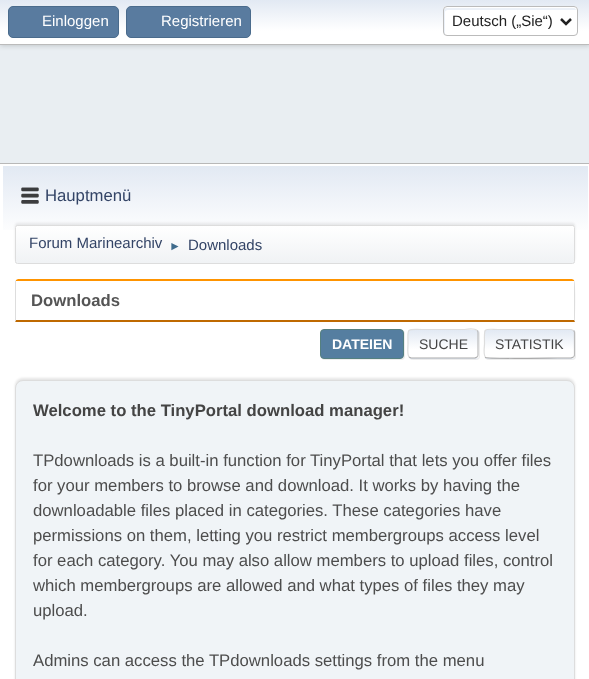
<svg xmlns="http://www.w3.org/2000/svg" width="589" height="679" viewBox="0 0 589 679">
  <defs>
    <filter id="blur1" x="-50%" y="-200%" width="200%" height="500%"><feGaussianBlur stdDeviation="2.5"/></filter>
    <linearGradient id="g1" gradientUnits="userSpaceOnUse" x1="295" y1="0" x2="295" y2="44"><stop offset="0" stop-color="#e2e9f3"/><stop offset="0.7" stop-color="#ffffff"/></linearGradient>
    <linearGradient id="g2" gradientUnits="userSpaceOnUse" x1="295" y1="166" x2="295" y2="266"><stop offset="0" stop-color="#e2e9f3"/><stop offset="0.7" stop-color="#ffffff"/></linearGradient>
    <filter id="blur2" x="-50%" y="-200%" width="200%" height="500%"><feGaussianBlur stdDeviation="1"/></filter>
    <clipPath id="clip1"><rect x="15" y="225" width="560" height="39" rx="2.5"/></clipPath>
    <linearGradient id="g3" gradientUnits="userSpaceOnUse" x1="295" y1="226" x2="295" y2="263"><stop offset="0" stop-color="#ffffff"/><stop offset="0.95" stop-color="#f1f3f5"/></linearGradient>
    <filter id="blur3" x="-50%" y="-200%" width="200%" height="500%"><feGaussianBlur stdDeviation="0.5"/></filter>
    <clipPath id="clip2"><rect x="408" y="329" width="71" height="30" rx="4"/></clipPath>
    <linearGradient id="g4" gradientUnits="userSpaceOnUse" x1="443" y1="330" x2="443" y2="358"><stop offset="0" stop-color="#e2e9f3"/><stop offset="0.7" stop-color="#ffffff"/></linearGradient>
    <linearGradient id="g5" gradientUnits="userSpaceOnUse" x1="443" y1="358" x2="443" y2="385"><stop offset="0" stop-color="#e2e9f3"/><stop offset="0.7" stop-color="#ffffff"/></linearGradient>
    <clipPath id="clip3"><path d="M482 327H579V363H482ZM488 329H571C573 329 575 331 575 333V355C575 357 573 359 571 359H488C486 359 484 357 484 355V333C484 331 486 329 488 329Z" clip-rule="evenodd"/></clipPath>
    <clipPath id="clip4"><rect x="484" y="329" width="91" height="30" rx="4"/></clipPath>
    <linearGradient id="g6" gradientUnits="userSpaceOnUse" x1="529" y1="330" x2="529" y2="358"><stop offset="0" stop-color="#e2e9f3"/><stop offset="0.7" stop-color="#ffffff"/></linearGradient>
    <linearGradient id="g7" gradientUnits="userSpaceOnUse" x1="529" y1="358" x2="529" y2="385"><stop offset="0" stop-color="#e2e9f3"/><stop offset="0.7" stop-color="#ffffff"/></linearGradient>
    <clipPath id="clip5"><rect x="15" y="323" width="560" height="42"/></clipPath>
  </defs>
  <rect width="100%" height="100%" fill="#e9eef2"/>
  <rect x="0" y="1" width="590" height="45" fill="#000000" fill-opacity="0.16" filter="url(#blur1)"/>
  <rect x="0" y="0" width="589" height="44" fill="url(#g1)"/>
  <rect x="0" y="44" width="589" height="1" fill="#bbbbbb"/>
  <rect x="8.5" y="6.5" width="110" height="31" rx="4.5" fill="#597b9f" stroke="#4a6b8c"/>
  <text x="42" y="26" font-family="Liberation Sans" font-size="15" fill="#ffffff">Einloggen</text>
  <rect x="126.5" y="6.5" width="124" height="31" rx="4.5" fill="#597b9f" stroke="#4a6b8c"/>
  <text x="161" y="26" font-family="Liberation Sans" font-size="15" fill="#ffffff">Registrieren</text>
  <rect x="443" y="6" width="135" height="30" rx="4" fill="#ffffff"/>
  <path d="M448 10H576C576 9 575 8 574 8H446C445 8 444 9 444 10V32C444 33 444 34 445 35V12C445 11 446 10 448 10Z" fill="#ecf1f8"/>
  <rect x="443.5" y="6.5" width="134" height="29" rx="3.5" fill="none" stroke="#bbbbbb"/>
  <path d="M561 19L566 24L571 19" fill="none" stroke="#222222" stroke-width="2.5"/>
  <text x="452" y="26" font-family="Liberation Sans" font-size="15" fill="#222222">Deutsch („Sie“)</text>
  <rect x="0" y="164" width="589" height="515" fill="#ffffff"/>
  <rect x="0" y="163" width="589" height="1" fill="#b8b8b8"/>
  <rect x="3" y="166" width="585" height="64" fill="url(#g2)"/>
  <image x="21" y="187" width="18" height="17" href="img1.png"/>
  <text x="45" y="201" font-family="Liberation Sans" font-size="16.7" fill="#334466">Hauptmenü</text>
  <rect x="15" y="223" width="560" height="38" rx="2.5" fill="#000000" fill-opacity="0.08" filter="url(#blur2)"/>
  <g clip-path="url(#clip1)">
    <rect x="15" y="226" width="560" height="37" fill="url(#g3)"/>
  </g>
  <rect x="15.5" y="225.5" width="559" height="38" rx="2" fill="none" stroke="#dddddd"/>
  <text x="29" y="248" font-family="Liberation Sans" font-size="15" fill="#334466">Forum Marinearchiv</text>
  <text x="169" y="250" font-family="Liberation Sans" font-size="12" fill="#3f6b8c">►</text>
  <text x="188" y="250" font-family="Liberation Sans" font-size="15" fill="#334466">Downloads</text>
  <path d="M18 279L16 280V281H574V280L572 279Z" fill="#ff9400"/>
  <path d="M574 280C576 281 575 317 575 322L574 320V281Z" fill="#dddddd"/>
  <path d="M575 322H15L16 320H574Z" fill="#bf6900"/>
  <path d="M15 281V322L16 320V281V280Z" fill="#dddddd"/>
  <text x="31" y="306" font-family="Liberation Sans" font-size="16.7" font-weight="bold" fill="#555555">Downloads</text>
  <rect x="321" y="330" width="84" height="30" rx="4" fill="#dddddd" fill-opacity="0.57" filter="url(#blur3)"/>
  <rect x="320.5" y="329.5" width="83" height="29" rx="3.5" fill="#557ea0" stroke="#558080"/>
  <text x="332" y="349" font-family="Liberation Sans" font-size="14" font-weight="bold" fill="#ffffff">DATEIEN</text>
  <rect x="409" y="330" width="71" height="30" rx="4" fill="#dddddd" fill-opacity="0.57" filter="url(#blur3)"/>
  <rect x="408" y="329" width="71" height="30" rx="4" fill="#ffffff"/>
  <g clip-path="url(#clip2)">
    <rect x="408" y="330" width="71" height="28" fill="url(#g4)"/>
    <rect x="408" y="358" width="71" height="1" fill="url(#g5)"/>
  </g>
  <path d="M477 330.5C478 331 478 331.5 478 332.5V355C478 356 478 356.5 477 357" fill="none" stroke="#bbbbbb" stroke-width="1.2"/>
  <path d="M477 357L475 358H411L409 357" fill="none" stroke="#aaaaaa" stroke-width="1.2"/>
  <path d="M409 357C407 355 408 346.5 408 344C408 327.5 405.5 329.5 422 329.5H464.5C464.5 329.5 474.5 328 477 330.5" fill="none" stroke="#dddddd" stroke-width="1.2"/>
  <text x="419" y="349" font-family="Liberation Sans" font-size="14" fill="#444444">SUCHE</text>
  <g clip-path="url(#clip3)">
    <rect x="485" y="330" width="91" height="30" rx="4" fill="#dddddd" fill-opacity="0.57" filter="url(#blur3)"/>
  </g>
  <rect x="484" y="329" width="91" height="30" rx="4" fill="#ffffff"/>
  <g clip-path="url(#clip4)">
    <rect x="484" y="330" width="91" height="28" fill="url(#g6)"/>
    <rect x="484" y="358" width="91" height="1" fill="url(#g7)"/>
  </g>
  <g clip-path="url(#clip5)">
    <path d="M573.5 330.5C574 331 574.5 331.5 574.5 332.5V355C574.5 356 574 356.5 573.5 357" fill="none" stroke="#bbbbbb" stroke-width="1.2"/>
  </g>
  <path d="M573.5 357L571 358H557.5C549.5 358 487.5 359 485.5 357.5V357" fill="none" stroke="#aaaaaa" stroke-width="1.2"/>
  <path d="M485.5 357C483 355 484.5 346.5 484.5 344C484.5 326 482 329.5 501.5 329.5H571L573.5 330.5" fill="none" stroke="#dddddd" stroke-width="1.2"/>
  <text x="495" y="349" font-family="Liberation Sans" font-size="14" fill="#444444">STATISTIK</text>
  <rect x="15" y="378" width="560" height="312" rx="8" fill="#000000" fill-opacity="0.1" filter="url(#blur2)"/>
  <rect x="15.5" y="380.5" width="559" height="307" rx="7.5" fill="#f0f4f7" stroke="#dddddd"/>
  <text x="33" y="416" font-family="Liberation Sans" font-size="16.7" font-weight="bold" fill="#444444">Welcome to the TinyPortal download manager!</text>
  <text x="33" y="466" font-family="Liberation Sans" font-size="16.7" fill="#4d4d4d">TPdownloads is a built-in function for TinyPortal that lets you offer files</text>
  <text x="33" y="491" font-family="Liberation Sans" font-size="16.7" fill="#4d4d4d">for your members to browse and download. It works by having the</text>
  <text x="33" y="516" font-family="Liberation Sans" font-size="16.7" fill="#4d4d4d">downloadable files placed in categories. These categories have</text>
  <text x="33" y="541" font-family="Liberation Sans" font-size="16.7" fill="#4d4d4d">permissions on them, letting you restrict membergroups access level</text>
  <text x="33" y="566" font-family="Liberation Sans" font-size="16.7" fill="#4d4d4d">for each category. You may also allow members to upload files, control</text>
  <text x="33" y="591" font-family="Liberation Sans" font-size="16.7" fill="#4d4d4d">which membergroups are allowed and what types of files they may</text>
  <text x="33" y="616" font-family="Liberation Sans" font-size="16.7" fill="#4d4d4d">upload.</text>
  <text x="33" y="666" font-family="Liberation Sans" font-size="16.7" fill="#4d4d4d">Admins can access the TPdownloads settings from the menu</text>
</svg>
